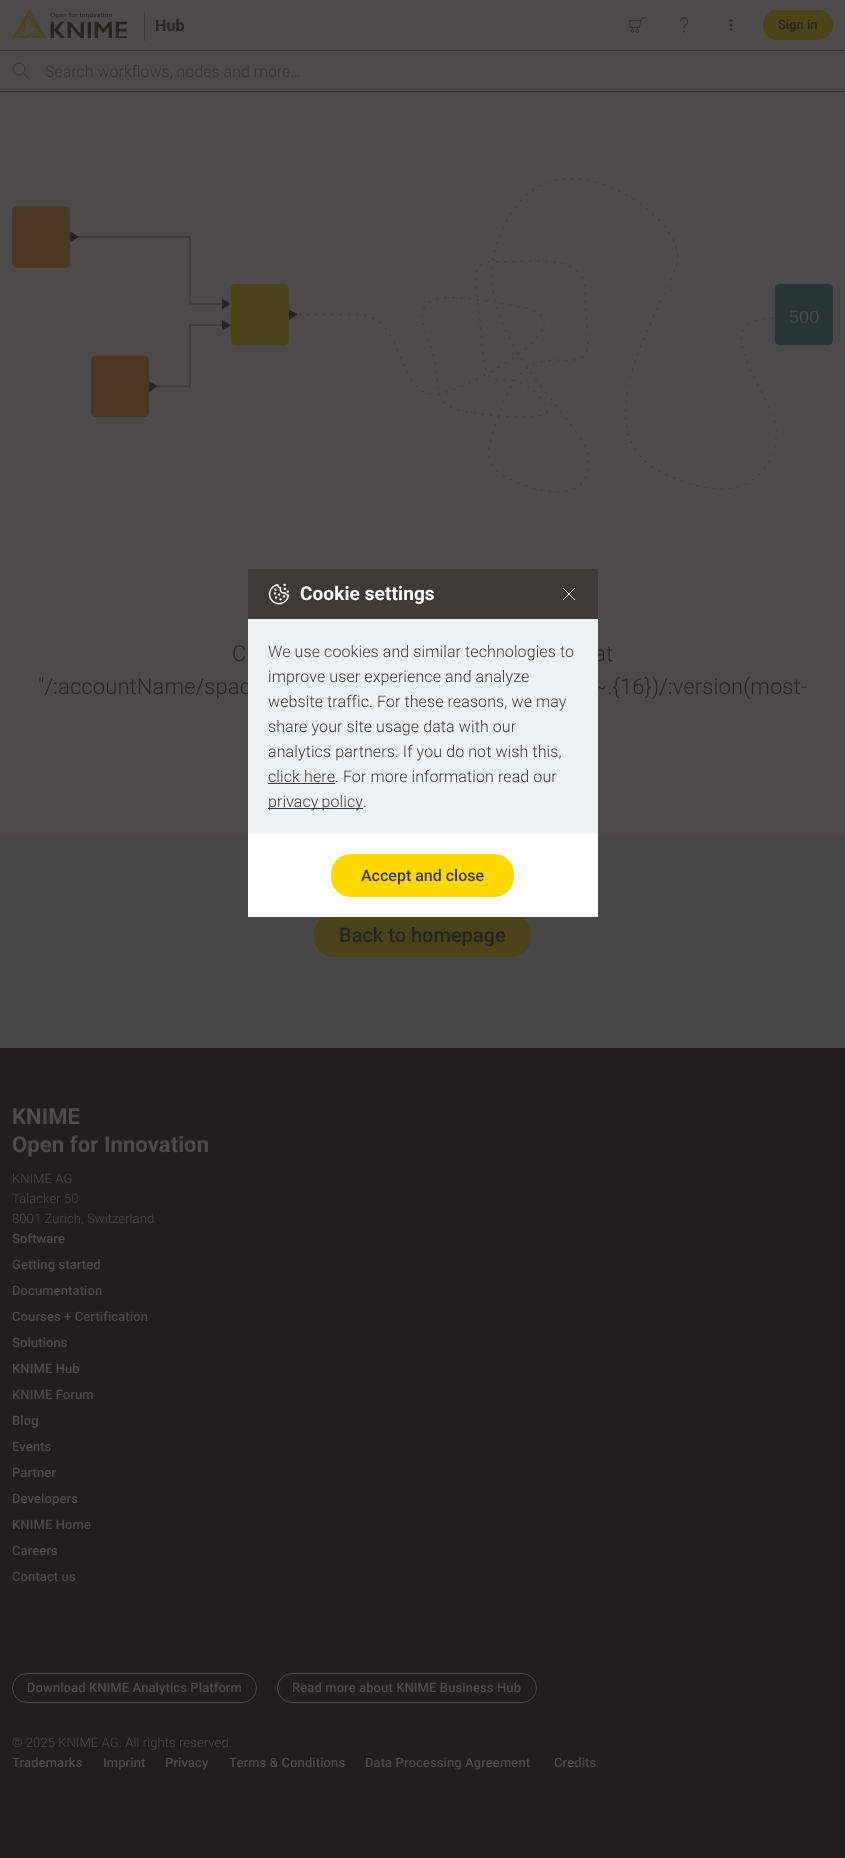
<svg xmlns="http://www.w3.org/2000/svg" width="845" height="1858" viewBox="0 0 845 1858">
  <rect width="100%" height="100%" fill="#494848"/>
  <rect x="0" y="0" width="845" height="50" fill="#4d4b4b"/>
  <image x="12" y="9" width="115" height="29" href="img1.png"/>
  <rect x="144" y="11" width="1" height="30" fill="#403f40"/>
  <text x="155" y="31" font-family="Roboto" font-size="16" font-weight="bold" letter-spacing="0.1" fill="#262423">Hub</text>
  <image x="628" y="17" width="17" height="16" href="img2.png"/>
  <image x="680" y="17" width="9" height="16" href="img3.png"/>
  <image x="729" y="19" width="4" height="12" href="img4.png"/>
  <rect x="763" y="10" width="70" height="30" rx="15" fill="#4d4318"/>
  <text x="778" y="29" font-family="Roboto" font-size="13" font-weight="500" fill="#262423">Sign in</text>
  <rect x="0" y="50" width="845" height="1" fill="#353333"/>
  <rect x="0" y="91" width="845" height="1" fill="#353333"/>
  <rect x="0" y="51" width="845" height="40" fill="#4d4b4b"/>
  <circle cx="19" cy="69" r="6" fill="none" stroke="#353333" stroke-width="0.9"/>
  <path d="M23.5 73.5L29 79" fill="none" stroke="#353333" stroke-width="0.9" stroke-linejoin="round"/>
  <text x="45" y="77" font-family="Roboto" font-size="16" font-weight="300" fill="#353333">Search workflows, nodes and more…</text>
  <rect x="0" y="92" width="845" height="744" fill="#4d4b4b"/>
  <image x="12" y="178" width="821" height="315" href="img5.png"/>
  <text x="789" y="323" font-family="Liberation Sans" font-size="18" letter-spacing="0.1" fill="#4d4b4b">500</text>
  <text x="232" y="661" font-family="Roboto" font-size="22" font-weight="300" letter-spacing="0.1" fill="#262423">C</text>
  <text x="594" y="661" font-family="Roboto" font-size="22" font-weight="300" letter-spacing="0.1" fill="#262423">at</text>
  <text x="38" y="694" font-family="Roboto" font-size="22" font-weight="300" letter-spacing="0.1" fill="#262423">"/:accountName/spac</text>
  <text x="592" y="694" font-family="Roboto" font-size="22" font-weight="300" letter-spacing="0.1" fill="#262423">~.{16})/:version(most-</text>
  <rect x="314" y="914" width="217" height="43" rx="20" fill="#4d4318"/>
  <text x="339" y="942" font-family="Roboto" font-size="20" font-weight="500" fill="#262423">Back to homepage</text>
  <rect x="0" y="1048" width="845" height="810" fill="#201e1e"/>
  <text x="12" y="1124" font-family="Roboto" font-size="22" font-weight="bold" letter-spacing="0.1" fill="#4d4b4b">KNIME</text>
  <text x="12" y="1152" font-family="Roboto" font-size="22" font-weight="bold" letter-spacing="0.1" fill="#4d4b4b">Open for Innovation</text>
  <text x="12" y="1183" font-family="Roboto" font-size="13" font-weight="300" letter-spacing="0.1" fill="#4d4b4b">KNIME AG</text>
  <text x="12" y="1203" font-family="Roboto" font-size="13" font-weight="300" letter-spacing="0.1" fill="#4d4b4b">Talacker 50</text>
  <text x="12" y="1223" font-family="Roboto" font-size="13" font-weight="300" letter-spacing="0.1" fill="#4d4b4b">8001 Zurich, Switzerland</text>
  <text x="12" y="1243" font-family="Roboto" font-size="13" font-weight="500" letter-spacing="0.1" fill="#4d4b4b">Software</text>
  <text x="12" y="1269" font-family="Roboto" font-size="13" font-weight="500" letter-spacing="0.1" fill="#4d4b4b">Getting started</text>
  <text x="12" y="1295" font-family="Roboto" font-size="13" font-weight="500" letter-spacing="0.1" fill="#4d4b4b">Documentation</text>
  <text x="12" y="1321" font-family="Roboto" font-size="13" font-weight="500" letter-spacing="0.1" fill="#4d4b4b">Courses + Certification</text>
  <text x="12" y="1347" font-family="Roboto" font-size="13" font-weight="500" letter-spacing="0.1" fill="#4d4b4b">Solutions</text>
  <text x="12" y="1373" font-family="Roboto" font-size="13" font-weight="500" letter-spacing="0.1" fill="#4d4b4b">KNIME Hub</text>
  <text x="12" y="1399" font-family="Roboto" font-size="13" font-weight="500" letter-spacing="0.1" fill="#4d4b4b">KNIME Forum</text>
  <text x="12" y="1425" font-family="Roboto" font-size="13" font-weight="500" letter-spacing="0.1" fill="#4d4b4b">Blog</text>
  <text x="12" y="1451" font-family="Roboto" font-size="13" font-weight="500" letter-spacing="0.1" fill="#4d4b4b">Events</text>
  <text x="12" y="1477" font-family="Roboto" font-size="13" font-weight="500" letter-spacing="0.1" fill="#4d4b4b">Partner</text>
  <text x="12" y="1503" font-family="Roboto" font-size="13" font-weight="500" letter-spacing="0.1" fill="#4d4b4b">Developers</text>
  <text x="12" y="1529" font-family="Roboto" font-size="13" font-weight="500" letter-spacing="0.1" fill="#4d4b4b">KNIME Home</text>
  <text x="12" y="1555" font-family="Roboto" font-size="13" font-weight="500" letter-spacing="0.1" fill="#4d4b4b">Careers</text>
  <text x="12" y="1581" font-family="Roboto" font-size="13" font-weight="500" letter-spacing="0.1" fill="#4d4b4b">Contact us</text>
  <rect x="12.5" y="1673.5" width="244" height="29" rx="14.5" fill="none" stroke="#4d4b4b"/>
  <text x="27" y="1692" font-family="Roboto" font-size="13" font-weight="500" letter-spacing="0.1" fill="#4d4b4b">Download KNIME Analytics Platform</text>
  <rect x="277.5" y="1673.5" width="259" height="29" rx="14.5" fill="none" stroke="#4d4b4b"/>
  <text x="292" y="1692" font-family="Roboto" font-size="13" font-weight="500" letter-spacing="0.1" fill="#4d4b4b">Read more about KNIME Business Hub</text>
  <text x="12" y="1747" font-family="Roboto" font-size="13" font-weight="300" letter-spacing="0.1" fill="#4d4b4b">© 2025 KNIME AG. All rights reserved.</text>
  <text x="12" y="1767" font-family="Roboto" font-size="13" font-weight="500" letter-spacing="0.1" fill="#4d4b4b">Trademarks</text>
  <text x="103" y="1767" font-family="Roboto" font-size="13" font-weight="500" letter-spacing="0.1" fill="#4d4b4b">Imprint</text>
  <text x="165" y="1767" font-family="Roboto" font-size="13" font-weight="500" letter-spacing="0.1" fill="#4d4b4b">Privacy</text>
  <text x="229" y="1767" font-family="Roboto" font-size="13" font-weight="500" letter-spacing="0.1" fill="#4d4b4b">Terms &amp; Conditions</text>
  <text x="365" y="1767" font-family="Roboto" font-size="13" font-weight="500" letter-spacing="0.1" fill="#4d4b4b">Data Processing Agreement</text>
  <text x="554" y="1767" font-family="Roboto" font-size="13" font-weight="500" letter-spacing="0.1" fill="#4d4b4b">Credits</text>
  <rect x="248" y="834" width="350" height="83" fill="#ffffff"/>
  <rect x="248" y="569" width="350" height="50" fill="#3e3a39"/>
  <image x="268" y="583" width="22" height="22" href="img6.png"/>
  <text x="300" y="600" font-family="Roboto" font-size="19" font-weight="bold" letter-spacing="0.1" fill="#ffffff">Cookie settings</text>
  <path d="M563 600L575 588M563 588L575 600" fill="none" stroke="#ffffff" stroke-linejoin="round"/>
  <rect x="248" y="619" width="350" height="215" fill="#eff1f2"/>
  <text x="268" y="657" font-family="Roboto" font-size="16" font-weight="300" letter-spacing="0.1" fill="#3e3a39">We use cookies and similar technologies to</text>
  <text x="268" y="682" font-family="Roboto" font-size="16" font-weight="300" letter-spacing="0.1" fill="#3e3a39">improve user experience and analyze</text>
  <text x="268" y="707" font-family="Roboto" font-size="16" font-weight="300" letter-spacing="0.1" fill="#3e3a39">website traffic. For these reasons, we may</text>
  <text x="268" y="732" font-family="Roboto" font-size="16" font-weight="300" letter-spacing="0.1" fill="#3e3a39">share your site usage data with our</text>
  <text x="268" y="757" font-family="Roboto" font-size="16" font-weight="300" letter-spacing="0.1" fill="#3e3a39">analytics partners. If you do not wish this,</text>
  <text x="268" y="782" font-family="Roboto" font-size="16" font-weight="300" letter-spacing="0.1" fill="#3e3a39">click here. For more information read our</text>
  <rect x="268" y="783" width="67" height="1" fill="#3e3a39"/>
  <rect x="268" y="808" width="95" height="1" fill="#3e3a39"/>
  <text x="268" y="807" word-spacing="-1" font-family="Roboto" font-size="16" font-weight="300" letter-spacing="0.1" fill="#3e3a39">privacy policy</text>
  <text x="363" y="807" font-family="Roboto" font-size="16" font-weight="300" letter-spacing="0.1" fill="#3e3a39">.</text>
  <rect x="331" y="854" width="183" height="43" rx="20" fill="#ffd800"/>
  <text x="361" y="881" font-family="Roboto" font-size="16" font-weight="500" fill="#3e3a39">Accept and close</text>
</svg>
